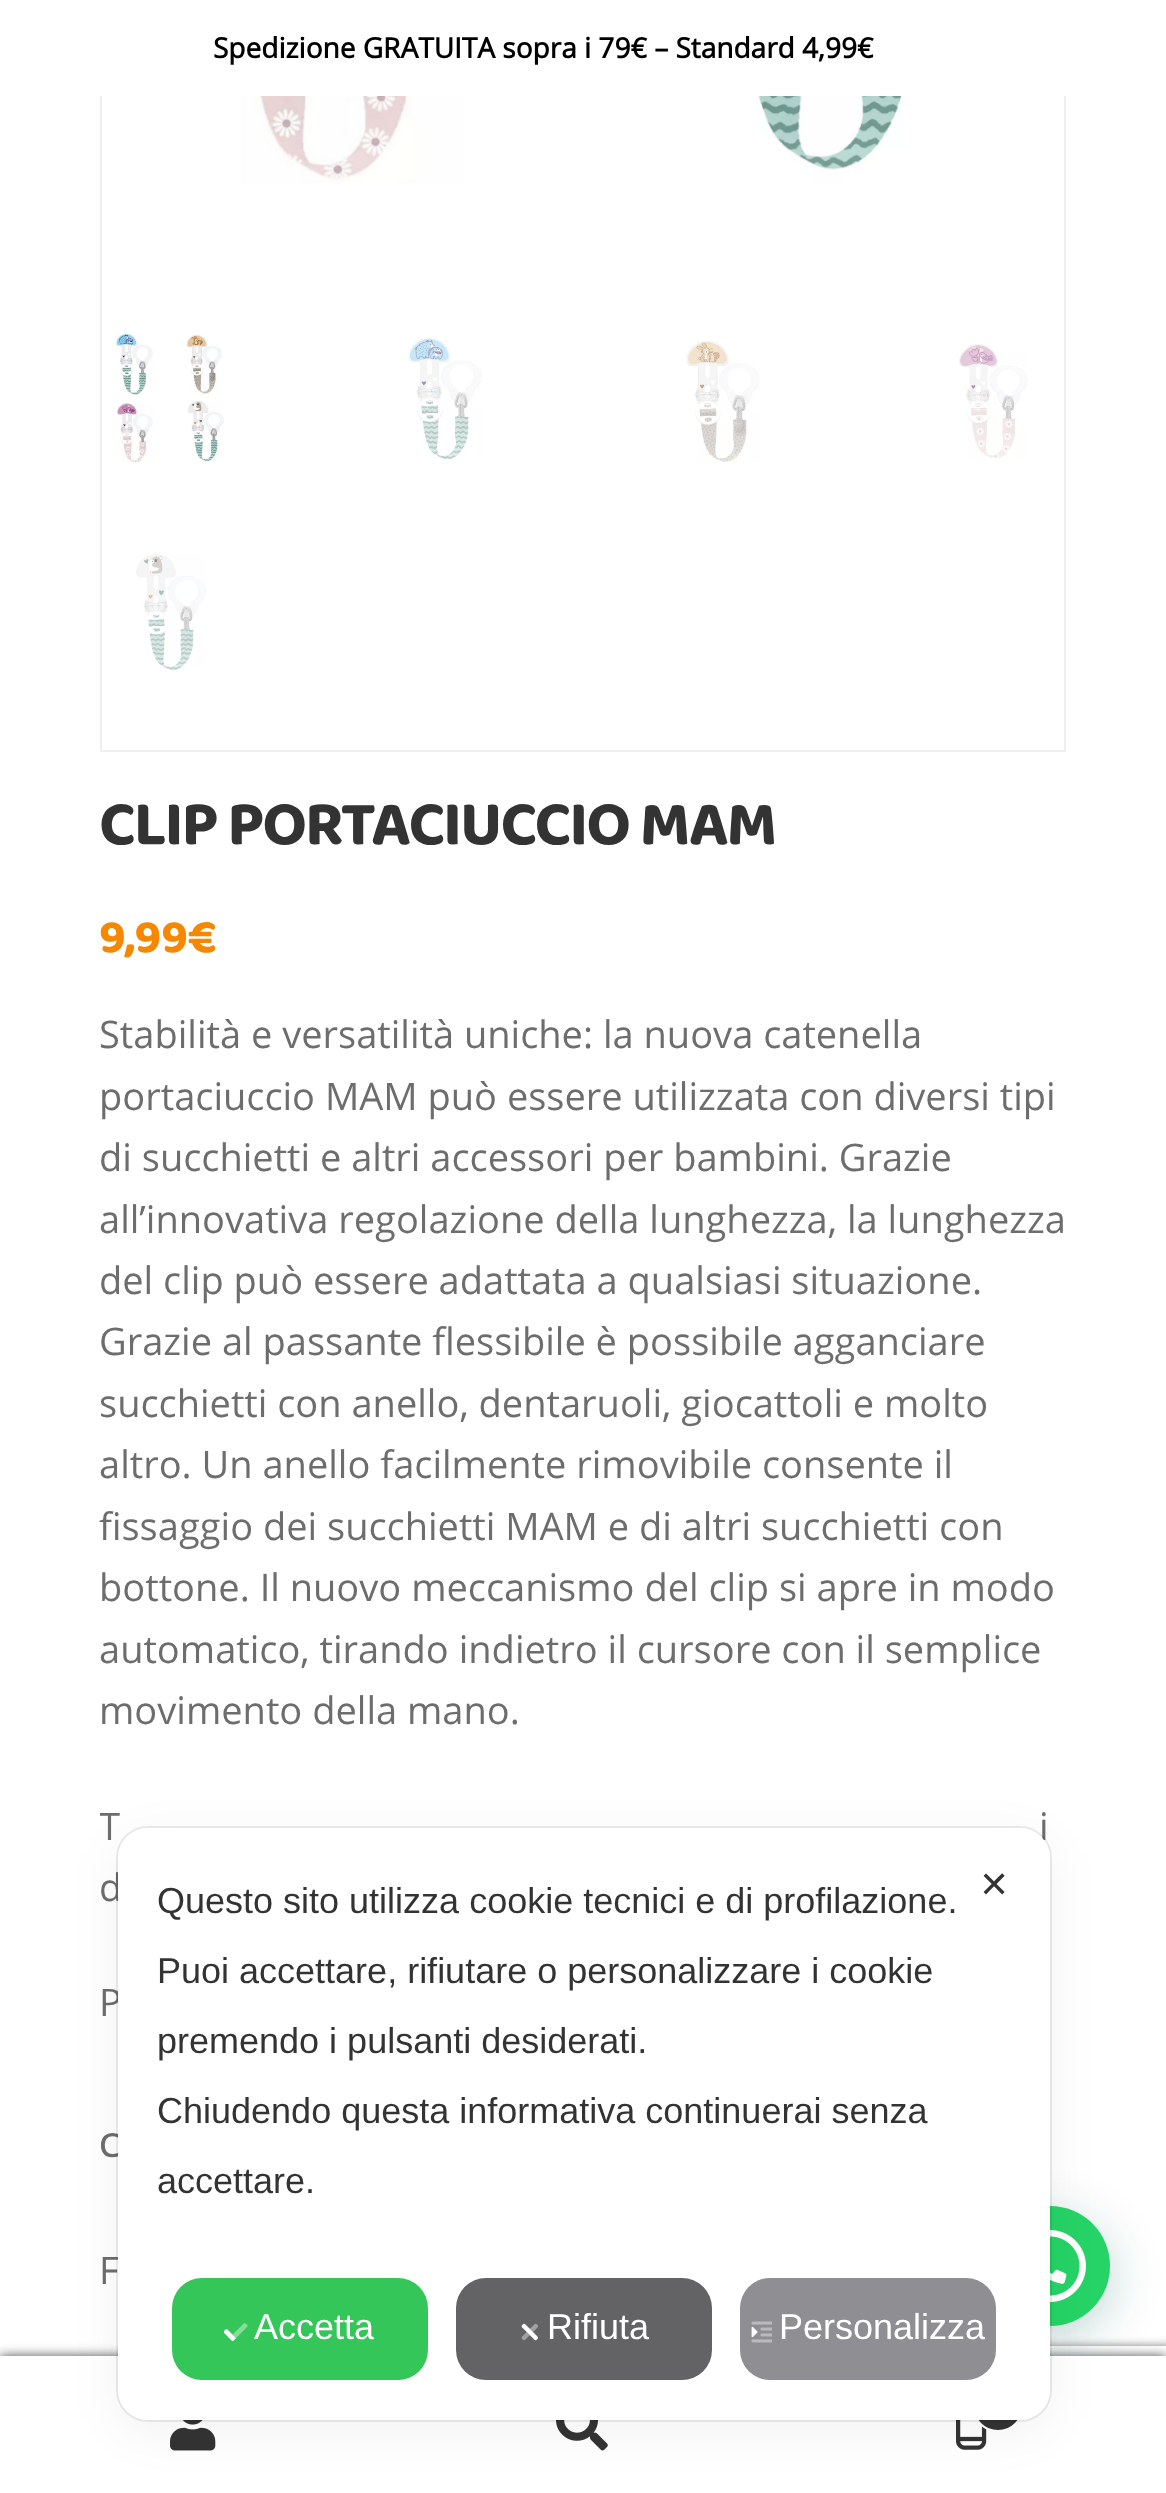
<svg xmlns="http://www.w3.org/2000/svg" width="1166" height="2493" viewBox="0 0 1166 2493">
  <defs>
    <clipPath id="clip1"><rect x="100" y="1004" width="966" height="1084"/></clipPath>
    <filter id="blur1" x="-50%" y="-200%" width="200%" height="500%"><feGaussianBlur stdDeviation="6"/></filter>
    <filter id="blur2" x="-50%" y="-200%" width="200%" height="500%"><feGaussianBlur stdDeviation="24"/></filter>
    <clipPath id="clip2"><rect x="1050" y="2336" width="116" height="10"/></clipPath>
    <filter id="blur3" x="-50%" y="-200%" width="200%" height="500%"><feGaussianBlur stdDeviation="5"/></filter>
  </defs>
  <rect width="100%" height="100%" fill="#ffffff"/>
  <rect x="101" y="-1" width="964" height="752" fill="none" stroke="#efefef" stroke-width="2"/>
  <rect x="100" y="0" width="966" height="96" fill="#ffffff"/>
  <text x="213" y="58" font-family="Open Sans" font-size="28" font-weight="bold" fill="#000000">Spedizione GRATUITA sopra i 79€ – Standard 4,99€</text>
  <image x="233" y="96" width="675" height="88" href="img1.png"/>
  <image x="116" y="333" width="108" height="130" href="img2.png"/>
  <image x="408" y="337" width="74" height="123" href="img3.png"/>
  <image x="686" y="340" width="74" height="122" href="img4.png"/>
  <image x="959" y="344" width="69" height="115" href="img5.png"/>
  <image x="136" y="554" width="70" height="116" href="img6.png"/>
  <text x="99" y="844" font-family="'Baloo 2'" font-size="64" font-weight="bold" letter-spacing="-2" fill="#333333">CLIP PORTACIUCCIO MAM</text>
  <text x="99" y="952" font-family="'Baloo 2'" font-size="48" font-weight="bold" fill="#f68700">9,99€</text>
  <text x="99" y="1048" font-family="Open Sans" font-size="38" fill="#6d6d6d">Stabilità e versatilità uniche: la nuova catenella</text>
  <text x="99" y="1110" font-family="Open Sans" font-size="38" fill="#6d6d6d">portaciuccio MAM può essere utilizzata con diversi tipi</text>
  <text x="99" y="1171" font-family="Open Sans" font-size="38" fill="#6d6d6d">di succhietti e altri accessori per bambini. Grazie</text>
  <text x="99" y="1233" font-family="Open Sans" font-size="38" fill="#6d6d6d">all’innovativa regolazione della lunghezza, la lunghezza</text>
  <text x="99" y="1294" font-family="Open Sans" font-size="38" fill="#6d6d6d">del clip può essere adattata a qualsiasi situazione.</text>
  <text x="99" y="1355" font-family="Open Sans" font-size="38" fill="#6d6d6d">Grazie al passante flessibile è possibile agganciare</text>
  <text x="99" y="1417" font-family="Open Sans" font-size="38" fill="#6d6d6d">succhietti con anello, dentaruoli, giocattoli e molto</text>
  <text x="99" y="1478" font-family="Open Sans" font-size="38" fill="#6d6d6d">altro. Un anello facilmente rimovibile consente il</text>
  <text x="99" y="1540" font-family="Open Sans" font-size="38" fill="#6d6d6d">fissaggio dei succhietti MAM e di altri succhietti con</text>
  <text x="99" y="1601" font-family="Open Sans" font-size="38" fill="#6d6d6d">bottone. Il nuovo meccanismo del clip si apre in modo</text>
  <text x="99" y="1663" font-family="Open Sans" font-size="38" fill="#6d6d6d">automatico, tirando indietro il cursore con il semplice</text>
  <text x="99" y="1724" font-family="Open Sans" font-size="38" fill="#6d6d6d">movimento della mano.</text>
  <g clip-path="url(#clip1)">
    <text x="99" y="1840" font-family="Open Sans" font-size="38" fill="#6d6d6d">T</text>
  </g>
  <text x="1039" y="1840" font-family="Open Sans" font-size="38" fill="#6d6d6d">i</text>
  <text x="99" y="1901" font-family="Open Sans" font-size="38" fill="#6d6d6d">d</text>
  <text x="99" y="2016" font-family="Open Sans" font-size="38" fill="#6d6d6d">P</text>
  <text x="99" y="2157" font-family="Open Sans" font-size="32" font-weight="bold" fill="#6d6d6d">C</text>
  <text x="99" y="2284" font-family="Open Sans" font-size="38" fill="#6d6d6d">F</text>
  <rect x="0" y="2356" width="1166" height="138" fill="#000000" fill-opacity="0.7" filter="url(#blur1)"/>
  <rect x="992" y="2218" width="120" height="120" rx="60" fill="#075e54" fill-opacity="0.24" filter="url(#blur2)"/>
  <g clip-path="url(#clip2)">
    <rect x="1026" y="2346" width="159" height="120" rx="4" fill="#808080" filter="url(#blur3)"/>
  </g>
  <rect x="0" y="2356" width="1166" height="2" fill="#ffffff"/>
  <rect x="0" y="2358" width="388" height="135" fill="#ffffff"/>
  <image x="170" y="2420" width="46" height="31" href="img7.png"/>
  <rect x="388" y="2420" width="390" height="73" fill="#ffffff"/>
  <image x="556" y="2420" width="52" height="31" href="img8.png"/>
  <rect x="778" y="2358" width="388" height="135" fill="#ffffff"/>
  <image x="956" y="2420" width="31" height="30" href="img9.png"/>
  <circle cx="998" cy="2406" r="25" fill="#333333" stroke="#ffffff" stroke-width="2"/>
  <circle cx="1050" cy="2266" r="60" fill="#25d366"/>
  <image x="1050" y="2230" width="36" height="72" href="img13.png"/>
  <rect x="117" y="1827" width="934" height="594" rx="31" fill="none" stroke="#000000" stroke-opacity="0.08" stroke-width="2"/>
  <rect x="118" y="1840" width="932" height="592" rx="30" fill="#000000" fill-opacity="0.05" filter="url(#blur2)"/>
  <rect x="118" y="1828" width="932" height="592" rx="30" fill="#ffffff"/>
  <text x="157" y="1913" font-family="Liberation Sans" font-size="36" fill="#333333">Questo sito utilizza cookie tecnici e di profilazione.</text>
  <text x="157" y="1983" font-family="Liberation Sans" font-size="36" fill="#333333">Puoi accettare, rifiutare o personalizzare i cookie</text>
  <text x="157" y="2053" font-family="Liberation Sans" font-size="36" fill="#333333">premendo i pulsanti desiderati.</text>
  <text x="157" y="2123" font-family="Liberation Sans" font-size="36" fill="#333333">Chiudendo questa informativa continuerai senza</text>
  <text x="157" y="2193" font-family="Liberation Sans" font-size="36" fill="#333333">accettare.</text>
  <rect x="172" y="2278" width="256" height="102" rx="30" fill="#34c659"/>
  <image x="224" y="2323" width="24" height="18" href="img10.png"/>
  <text x="254" y="2339" font-family="Liberation Sans" font-size="36" fill="#ffffff">Accetta</text>
  <rect x="456" y="2278" width="256" height="102" rx="30" fill="#636366"/>
  <image x="521" y="2323" width="17" height="18" href="img11.png"/>
  <text x="547" y="2339" font-family="Liberation Sans" font-size="36" fill="#ffffff">Rifiuta</text>
  <rect x="740" y="2278" width="256" height="102" rx="30" fill="#8e8e93"/>
  <image x="751" y="2321" width="21" height="22" href="img12.png"/>
  <text x="779" y="2339" font-family="Liberation Sans" font-size="36" fill="#ffffff">Personalizza</text>
  <text x="979" y="1897" font-family="DejaVu Sans" font-size="36" fill="#333333">✕</text>
</svg>
